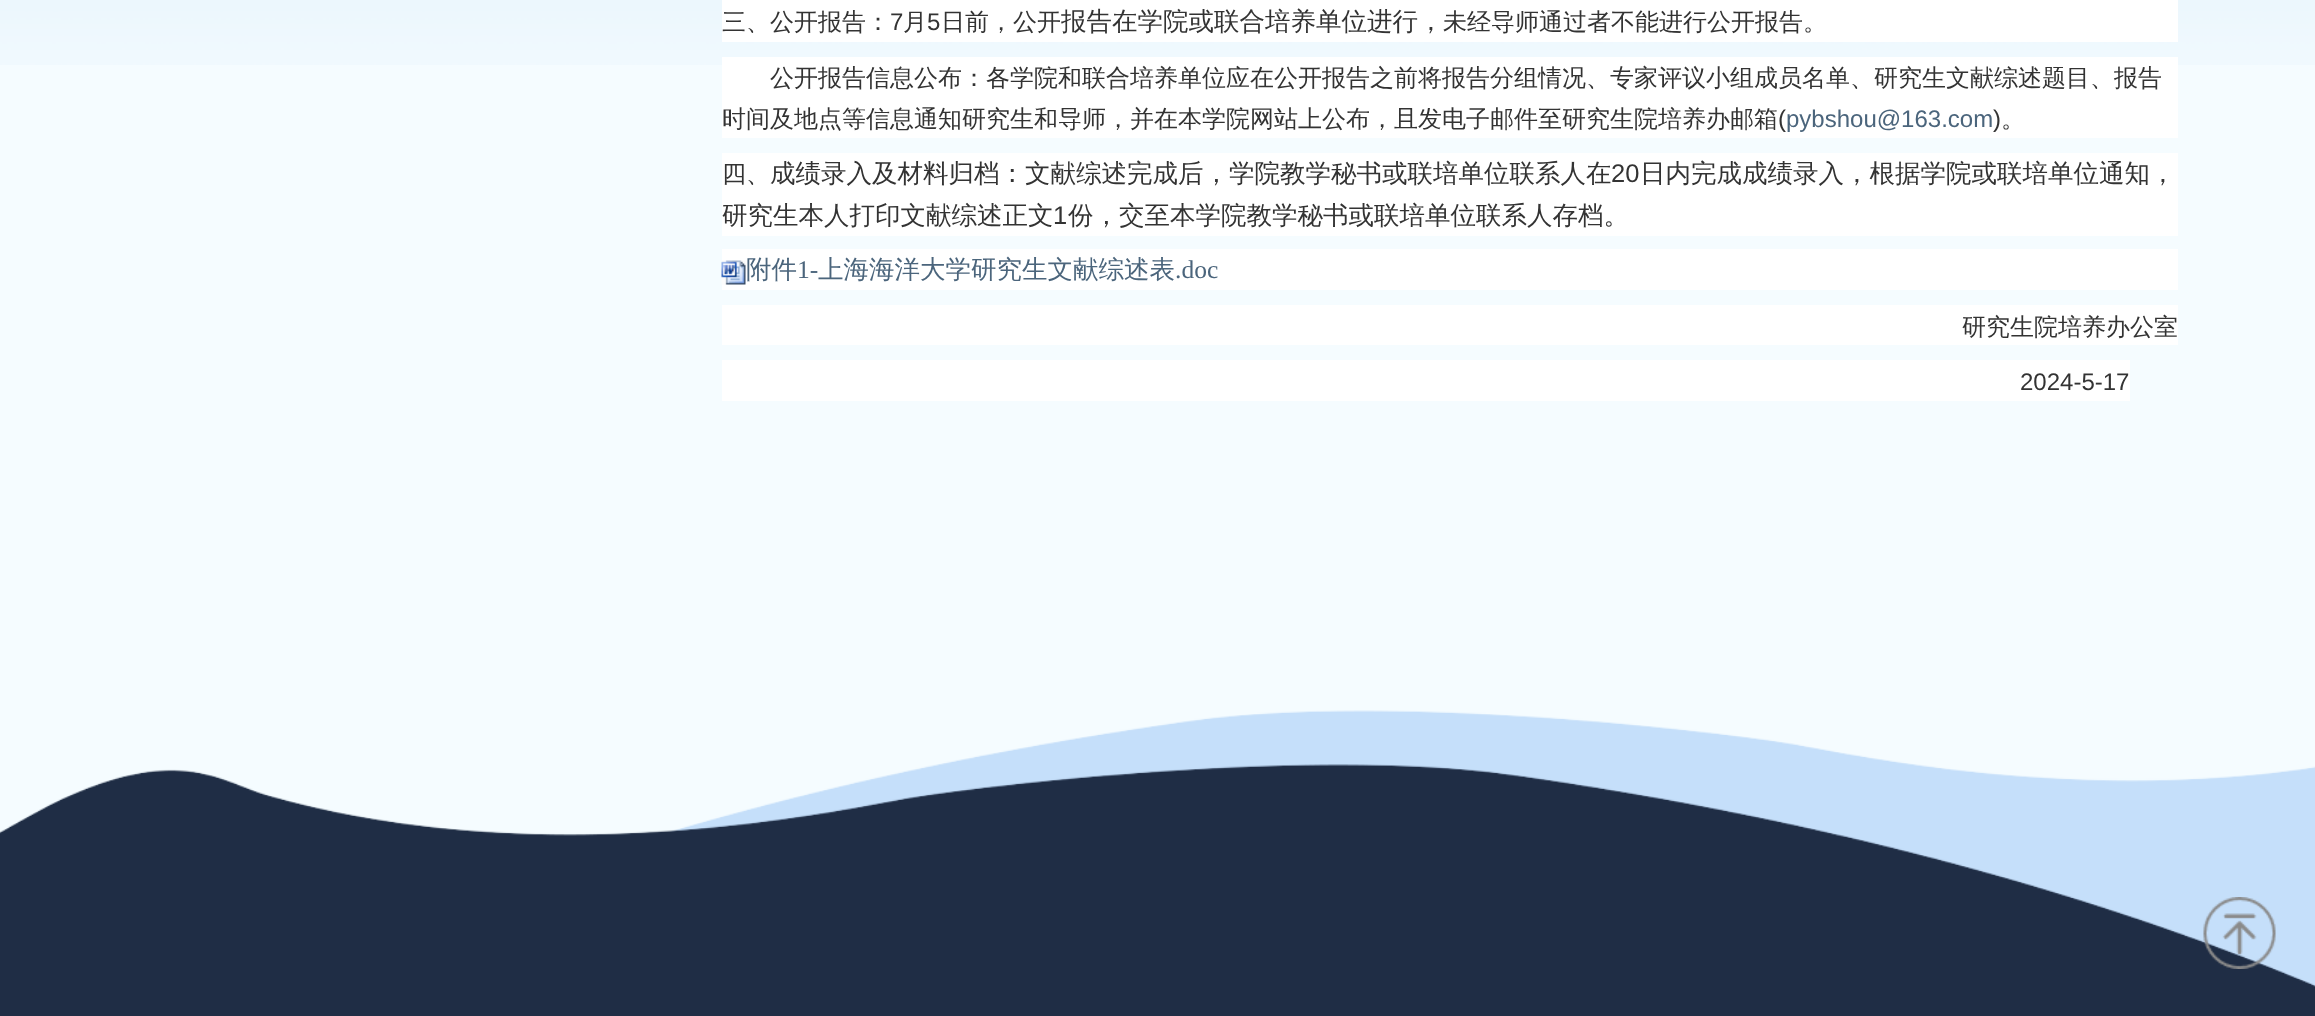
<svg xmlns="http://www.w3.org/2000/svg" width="2315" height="1016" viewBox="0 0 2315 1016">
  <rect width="100%" height="100%" fill="#1f2d45"/>
  <image x="0" y="0" width="2315" height="65" href="img1.png"/>
  <rect x="722" y="0" width="1456" height="42" fill="#ffffff"/>
  <text x="722" y="30" font-family="WenQuanYi Zen Hei" font-size="24" font-weight="500" fill="#333333">三、公开报告：</text>
  <text x="890" y="30" font-family="Liberation Sans" font-size="24" fill="#333333">7</text>
  <text x="903" y="30" font-family="WenQuanYi Zen Hei" font-size="24" font-weight="500" fill="#333333">月</text>
  <text x="927" y="30" font-family="Liberation Sans" font-size="24" fill="#333333">5</text>
  <text x="941" y="30" font-family="WenQuanYi Zen Hei" font-size="24" font-weight="500" fill="#333333">日前，公开</text>
  <text x="1061" y="30" font-family="WenQuanYi Zen Hei" font-size="25.5" font-weight="500" fill="#333333">报告在学院或联合培养单位进行，</text>
  <text x="1443" y="30" font-family="WenQuanYi Zen Hei" font-size="24" font-weight="500" fill="#333333">未经导师通过者不能进行公开报告。</text>
  <rect x="0" y="65" width="2315" height="498" fill="#f5fcff"/>
  <rect x="722" y="57" width="1456" height="81" fill="#ffffff"/>
  <text x="770" y="86" font-family="WenQuanYi Zen Hei" font-size="24" font-weight="500" fill="#333333">公开报告信息公布：各学院和联合培养单位应在公开报告之前将报告分组情况、专家评议小组成员名单、研究生文献综述题目、报告</text>
  <text x="722" y="127" font-family="WenQuanYi Zen Hei" font-size="24" font-weight="500" fill="#333333">时间及地点等信息通知研究生和导师，并在本学院网站上公布，且发电子邮件至研究生院培养办邮箱</text>
  <text x="1778" y="127" font-family="Liberation Sans" font-size="24" fill="#333333">(</text>
  <text x="1786" y="127" font-family="Liberation Sans" font-size="24" fill="#4b657c">pybshou@163.com</text>
  <text x="1993" y="127" font-family="Liberation Sans" font-size="24" fill="#333333">)</text>
  <text x="2001" y="127" font-family="WenQuanYi Zen Hei" font-size="24" font-weight="500" fill="#333333">。</text>
  <rect x="722" y="153" width="1456" height="83" fill="#ffffff"/>
  <text x="722" y="182" font-family="WenQuanYi Zen Hei" font-size="24" font-weight="500" fill="#333333">四、</text>
  <text x="770" y="182" font-family="WenQuanYi Zen Hei" font-size="25.5" font-weight="500" fill="#333333">成绩录入及材料归档：文献综述完成后，学院教学秘书或联培单位联系人在</text>
  <text x="1611" y="182" font-family="Liberation Sans" font-size="25.5" fill="#333333">20</text>
  <text x="1640" y="182" font-family="WenQuanYi Zen Hei" font-size="25.5" font-weight="500" fill="#333333">日内完成成绩录入，根据学院或联培单位通知，</text>
  <text x="722" y="224" font-family="WenQuanYi Zen Hei" font-size="25.5" font-weight="500" fill="#333333">研究生本人打印文献综述正文</text>
  <text x="1053" y="224" font-family="Liberation Sans" font-size="25.5" fill="#333333">1</text>
  <text x="1068" y="224" font-family="WenQuanYi Zen Hei" font-size="25.5" font-weight="500" fill="#333333">份，交至本学院教学秘书或联培单位联系人存档。</text>
  <rect x="722" y="249" width="1456" height="41" fill="#ffffff"/>
  <image x="721" y="260" width="25" height="25" href="img2.png"/>
  <text x="746" y="278" font-family="WenQuanYi Zen Hei" font-size="25.5" font-weight="500" fill="#4b657c">附件</text>
  <text x="797" y="278" font-family="Liberation Serif" font-size="25.5" fill="#4b657c">1-</text>
  <text x="818" y="278" font-family="WenQuanYi Zen Hei" font-size="25.5" font-weight="500" fill="#4b657c">上海海洋大学研究生文献综述表</text>
  <text x="1175" y="278" font-family="Liberation Serif" font-size="25.5" fill="#4b657c">.doc</text>
  <rect x="722" y="305" width="1456" height="40" fill="#ffffff"/>
  <text x="1962" y="335" font-family="WenQuanYi Zen Hei" font-size="24" font-weight="500" fill="#333333">研究生院培养办公室</text>
  <rect x="722" y="360" width="1408" height="41" fill="#ffffff"/>
  <text x="2020" y="390" font-family="Liberation Sans" font-size="24" fill="#333333">2024-5-17</text>
  <image x="0" y="563" width="2315" height="424" href="img3.png"/>
  <image x="2203" y="897" width="73" height="72" href="img4.png"/>
</svg>
